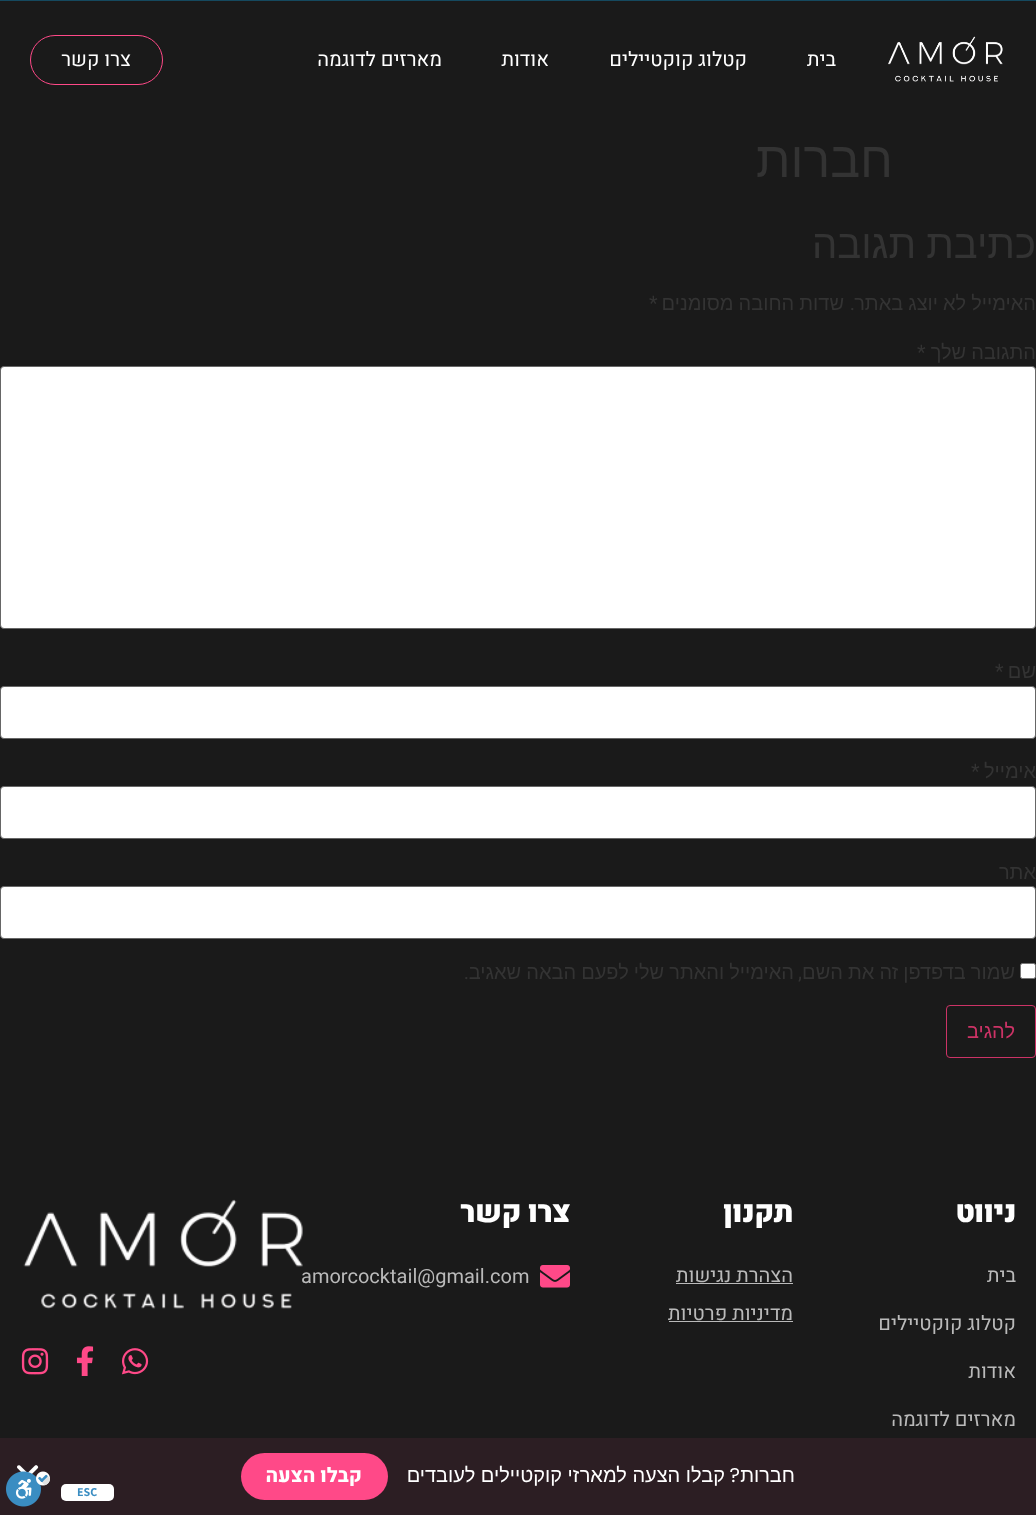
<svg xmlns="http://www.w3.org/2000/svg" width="1036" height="1515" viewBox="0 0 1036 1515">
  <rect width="100%" height="100%" fill="#1a1a1a"/>
  <image x="888" y="36" width="115" height="46" href="img1.png"/>
  <text x="836" y="66" font-family="Heebo" font-size="20" direction="rtl" fill="#ffffff">בית</text>
  <text x="747" y="66" font-family="Heebo" font-size="20" direction="rtl" fill="#ffffff">קטלוג קוקטיילים</text>
  <text x="549" y="66" font-family="Heebo" font-size="20" direction="rtl" fill="#ffffff">אודות</text>
  <text x="442" y="66" font-family="Heebo" font-size="20" direction="rtl" fill="#ffffff">מארזים לדוגמה</text>
  <rect x="30.5" y="35.5" width="132" height="49" rx="24.5" fill="none" stroke="#ff4988"/>
  <text x="131" y="66" font-family="Heebo" font-size="20" direction="rtl" fill="#ffffff">צרו קשר</text>
  <text x="893" y="177" font-family="Liberation Sans" font-size="50" direction="rtl" fill="#333333">חברות</text>
  <text x="1036" y="258" word-spacing="-1" font-family="Liberation Sans" font-size="40" direction="rtl" fill="#333333">כתיבת תגובה</text>
  <text x="1036" y="310" word-spacing="-0.5" font-family="Liberation Sans" font-size="20" direction="rtl" fill="#333333">האימייל לא יוצג באתר</text>
  <text x="855" y="310" font-family="Roboto" font-size="20" direction="rtl" fill="#333333">.</text>
  <text x="844" y="310" word-spacing="-0.5" font-family="Liberation Sans" font-size="20" direction="rtl" fill="#333333">שדות החובה מסומנים</text>
  <text x="649" y="310" font-family="Roboto" font-size="20" fill="#333333">*</text>
  <text x="1036" y="359" word-spacing="-0.5" font-family="Liberation Sans" font-size="20" direction="rtl" fill="#333333">התגובה שלך</text>
  <text x="917" y="359" font-family="Roboto" font-size="20" fill="#333333">*</text>
  <rect x="0.5" y="366.5" width="1035" height="262" rx="3.5" fill="#ffffff" stroke="#666666"/>
  <text x="1036" y="678" font-family="Liberation Sans" font-size="20" direction="rtl" fill="#333333">שם</text>
  <text x="995" y="678" font-family="Roboto" font-size="20" fill="#333333">*</text>
  <rect x="0.5" y="686.5" width="1035" height="52" rx="3.5" fill="#ffffff" stroke="#666666"/>
  <text x="1036" y="778" font-family="Liberation Sans" font-size="20" direction="rtl" fill="#333333">אימייל</text>
  <text x="971" y="778" font-family="Roboto" font-size="20" fill="#333333">*</text>
  <rect x="0.5" y="786.5" width="1035" height="52" rx="3.5" fill="#ffffff" stroke="#666666"/>
  <text x="1036" y="879" font-family="Liberation Sans" font-size="20" direction="rtl" fill="#333333">אתר</text>
  <rect x="0.5" y="886.5" width="1035" height="52" rx="3.5" fill="#ffffff" stroke="#666666"/>
  <rect x="1020.5" y="963.5" width="15" height="15" rx="2" fill="#ffffff" stroke="#767676"/>
  <text x="1015" y="979" word-spacing="-0.5" font-family="Liberation Sans" font-size="20" direction="rtl" fill="#333333">שמור בדפדפן זה את השם</text>
  <text x="802" y="979" font-family="Roboto" font-size="20" direction="rtl" fill="#333333">,</text>
  <text x="794" y="979" word-spacing="-0.5" font-family="Liberation Sans" font-size="20" direction="rtl" fill="#333333">האימייל והאתר שלי לפעם הבאה שאגיב</text>
  <text x="469" y="979" font-family="Roboto" font-size="20" direction="rtl" fill="#333333">.</text>
  <rect x="946.5" y="1005.5" width="89" height="52" rx="3.5" fill="none" stroke="#cc3366"/>
  <text x="1015" y="1038" font-family="Liberation Sans" font-size="20" direction="rtl" fill="#cc3366">להגיב</text>
  <rect x="0" y="1438" width="1036" height="77" fill="#2c1e23"/>
  <text x="795" y="1482" font-family="Liberation Sans" font-size="20" direction="rtl" fill="#ffffff">חברות</text>
  <text x="740" y="1482" font-family="Poppins" font-size="20" direction="rtl" fill="#ffffff">?</text>
  <text x="725" y="1482" font-family="Liberation Sans" font-size="20" direction="rtl" fill="#ffffff">קבלו הצעה למארזי קוקטיילים לעובדים</text>
  <rect x="241" y="1453" width="147" height="47" rx="23.5" fill="#ff4988"/>
  <text x="362" y="1482" font-family="Heebo" font-size="20" font-weight="800" direction="rtl" fill="#ffffff">קבלו הצעה</text>
  <image x="17" y="1465" width="22" height="9" href="img2.png"/>
  <text x="1016" y="1222" font-family="Heebo" font-size="30" font-weight="900" letter-spacing="-0.5" direction="rtl" fill="#ffffff">ניווט</text>
  <text x="1016" y="1282" font-family="Heebo" font-size="20" direction="rtl" fill="#bababa">בית</text>
  <text x="1016" y="1330" font-family="Heebo" font-size="20" direction="rtl" fill="#bababa">קטלוג קוקטיילים</text>
  <text x="1016" y="1378" font-family="Heebo" font-size="20" direction="rtl" fill="#bababa">אודות</text>
  <text x="1016" y="1426" font-family="Heebo" font-size="20" direction="rtl" fill="#bababa">מארזים לדוגמה</text>
  <text x="793" y="1222" font-family="Heebo" font-size="30" font-weight="900" letter-spacing="-0.5" direction="rtl" fill="#ffffff">תקנון</text>
  <text x="793" y="1282" font-family="Heebo" font-size="20" direction="rtl" fill="#bababa">הצהרת נגישות</text>
  <rect x="676" y="1283" width="117" height="1" fill="#bababa"/>
  <text x="793" y="1320" font-family="Heebo" font-size="20" direction="rtl" fill="#bababa">מדיניות פרטיות</text>
  <rect x="669" y="1321" width="124" height="1" fill="#bababa"/>
  <text x="570" y="1222" font-family="Heebo" font-size="30" font-weight="900" letter-spacing="-0.5" direction="rtl" fill="#ffffff">צרו קשר</text>
  <image x="540" y="1265" width="30" height="23" href="img3.png"/>
  <text x="301" y="1283" font-family="Heebo" font-size="20" fill="#bababa">amorcocktail@gmail.com</text>
  <image x="23" y="1199" width="280" height="110" href="img4.png"/>
  <image x="121" y="1348" width="28" height="27" href="img5.png"/>
  <image x="76" y="1346" width="18" height="30" href="img6.png"/>
  <image x="21" y="1348" width="28" height="27" href="img7.png"/>
  <rect x="0" y="0" width="1036" height="1" fill="#15495f"/>
  <rect x="61" y="1484" width="53" height="17" rx="5" fill="#ffffff"/>
  <text x="77" y="1496" font-family="Assistant" font-size="12" font-weight="bold" fill="#3a8dc2">ESC</text>
  <image x="6" y="1471" width="44" height="36" href="img8.png"/>
</svg>
